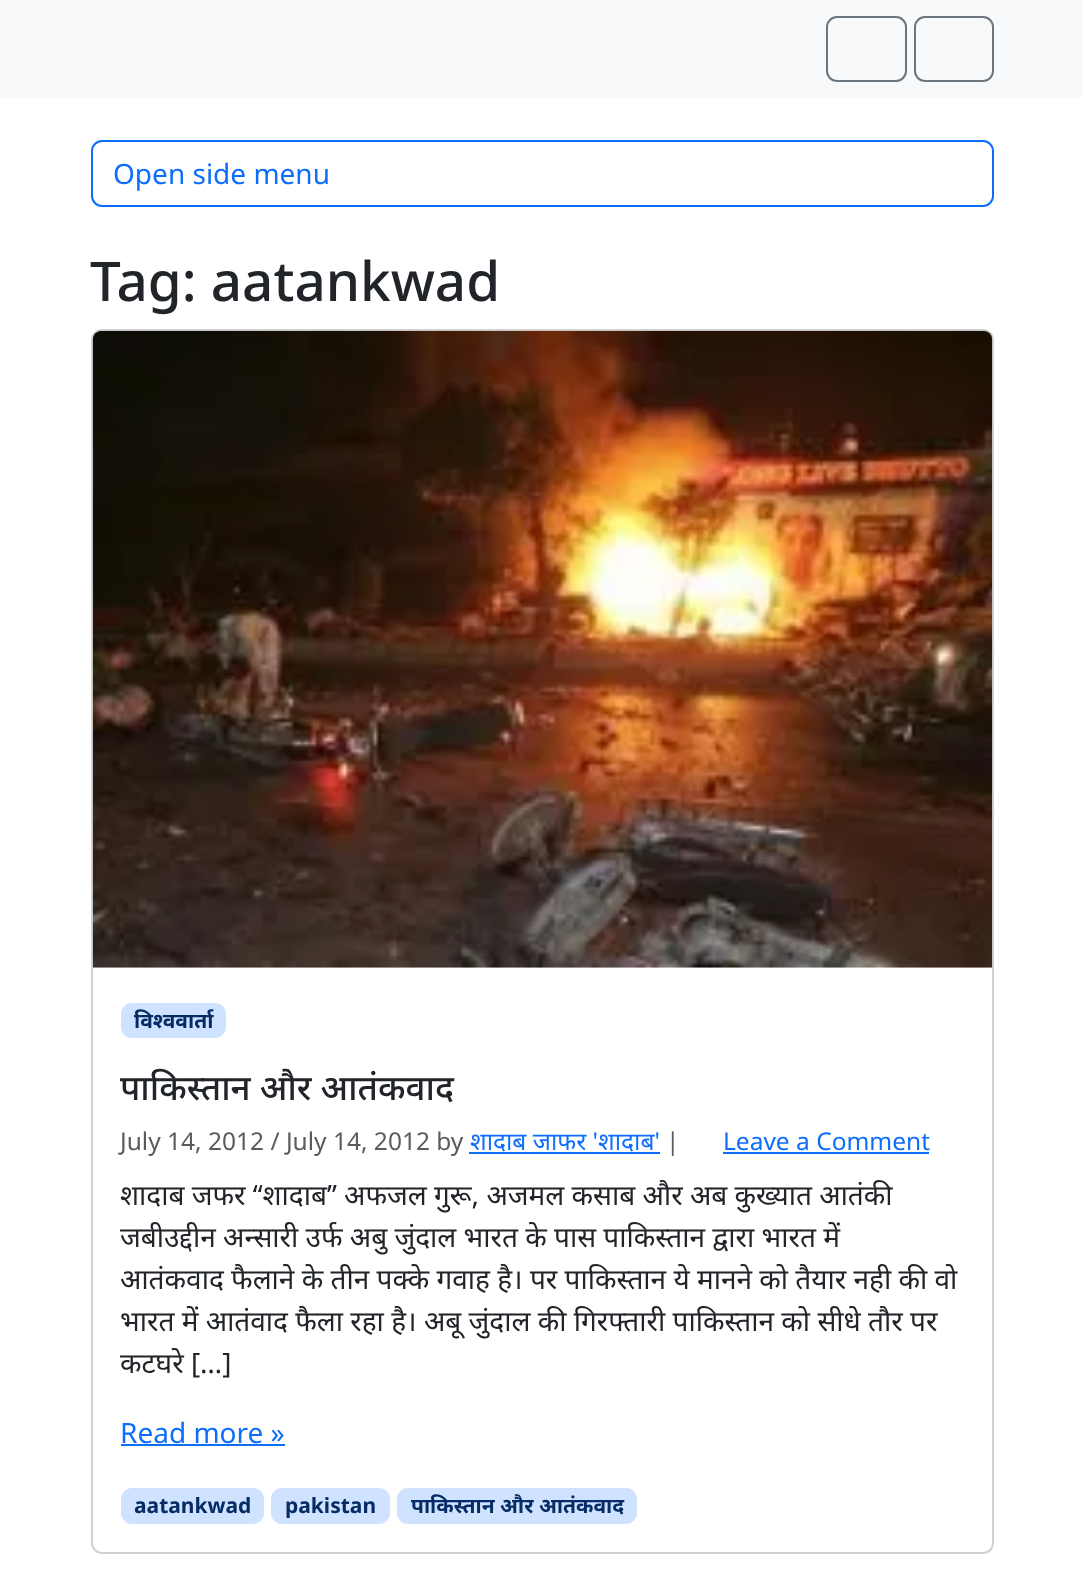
<svg xmlns="http://www.w3.org/2000/svg" width="1083" height="1594" viewBox="0 0 1083 1594">
  <rect width="100%" height="100%" fill="#ffffff"/>
  <rect x="0" y="0" width="1083" height="98" fill="#f8f9fa"/>
  <rect x="827" y="17" width="79" height="64" rx="10" fill="none" stroke="#6c757d" stroke-width="2"/>
  <rect x="915" y="17" width="78" height="64" rx="10" fill="none" stroke="#6c757d" stroke-width="2"/>
  <rect x="92" y="141" width="901" height="65" rx="10" fill="none" stroke="#0d6efd" stroke-width="2"/>
  <text x="113" y="184" font-family="Noto Sans" font-size="28" fill="#0d6efd">Open side menu</text>
  <text x="90" y="301" font-family="Noto Sans" font-size="54.75" font-weight="500" fill="#212529">Tag: aatankwad</text>
  <rect x="92" y="330" width="901" height="1223" rx="10" fill="none" stroke="#d2d2d2" stroke-width="2"/>
  <image x="92" y="330" width="901" height="638" href="img1.png"/>
  <rect x="121" y="1003" width="105" height="35" rx="11" fill="#cfe2ff"/>
  <text x="134" y="1028" font-family="Noto Sans" font-size="21" font-weight="bold" fill="#052c65">विश्ववार्ता</text>
  <text x="120" y="1100" font-family="Noto Sans" font-size="35" font-weight="500" fill="#212529">पाकिस्तान और आतंकवाद</text>
  <text x="120" y="1150" font-family="Noto Sans" font-size="24.5" fill="#595c5f">July 14, 2012 / July 14, 2012 by</text>
  <text x="470" y="1150" font-family="Noto Sans" font-size="24.5" fill="#0d6efd">शादाब जाफर 'शादाब'</text>
  <rect x="469" y="1152" width="191" height="2" fill="#0d6efd"/>
  <text x="666" y="1150" font-family="Noto Sans" font-size="24.5" fill="#595c5f">|</text>
  <text x="723" y="1150" font-family="Noto Sans" font-size="24.5" fill="#0d6efd">Leave a Comment</text>
  <rect x="723" y="1152" width="206" height="2" fill="#0d6efd"/>
  <text x="120" y="1205" font-family="Noto Sans" font-size="28" fill="#212529">शादाब जफर ‘‘शादाब’’ अफजल गुरू, अजमल कसाब और अब कुख्यात आतंकी</text>
  <text x="120" y="1247" font-family="Noto Sans" font-size="28" fill="#212529">जबीउद्दीन अन्सारी उर्फ अबु जंुदाल भारत के पास पाकिस्तान द्वारा भारत में</text>
  <text x="120" y="1289" font-family="Noto Sans" font-size="28" fill="#212529">आतंकवाद फैलाने के तीन पक्के गवाह है। पर पाकिस्तान ये मानने को तैयार नही की वो</text>
  <text x="120" y="1331" font-family="Noto Sans" font-size="28" fill="#212529">भारत में आतंवाद फैला रहा है। अबू जुंदाल की गिरफ्तारी पाकिस्तान को सीधे तौर पर</text>
  <text x="120" y="1373" font-family="Noto Sans" font-size="28" fill="#212529">कटघरे […]</text>
  <text x="120" y="1443" font-family="Noto Sans" font-size="28" fill="#0d6efd">Read more »</text>
  <rect x="121" y="1444" width="164" height="2" fill="#0d6efd"/>
  <rect x="121" y="1488" width="143" height="36" rx="11" fill="#cfe2ff"/>
  <text x="134" y="1513" font-family="Noto Sans" font-size="21" font-weight="bold" fill="#052c65">aatankwad</text>
  <rect x="271" y="1488" width="119" height="36" rx="11" fill="#cfe2ff"/>
  <text x="285" y="1513" font-family="Noto Sans" font-size="21" font-weight="bold" fill="#052c65">pakistan</text>
  <rect x="397" y="1488" width="240" height="36" rx="11" fill="#cfe2ff"/>
  <text x="411" y="1513" font-family="Noto Sans" font-size="21" font-weight="bold" fill="#052c65">पाकिस्तान और आतंकवाद</text>
</svg>
